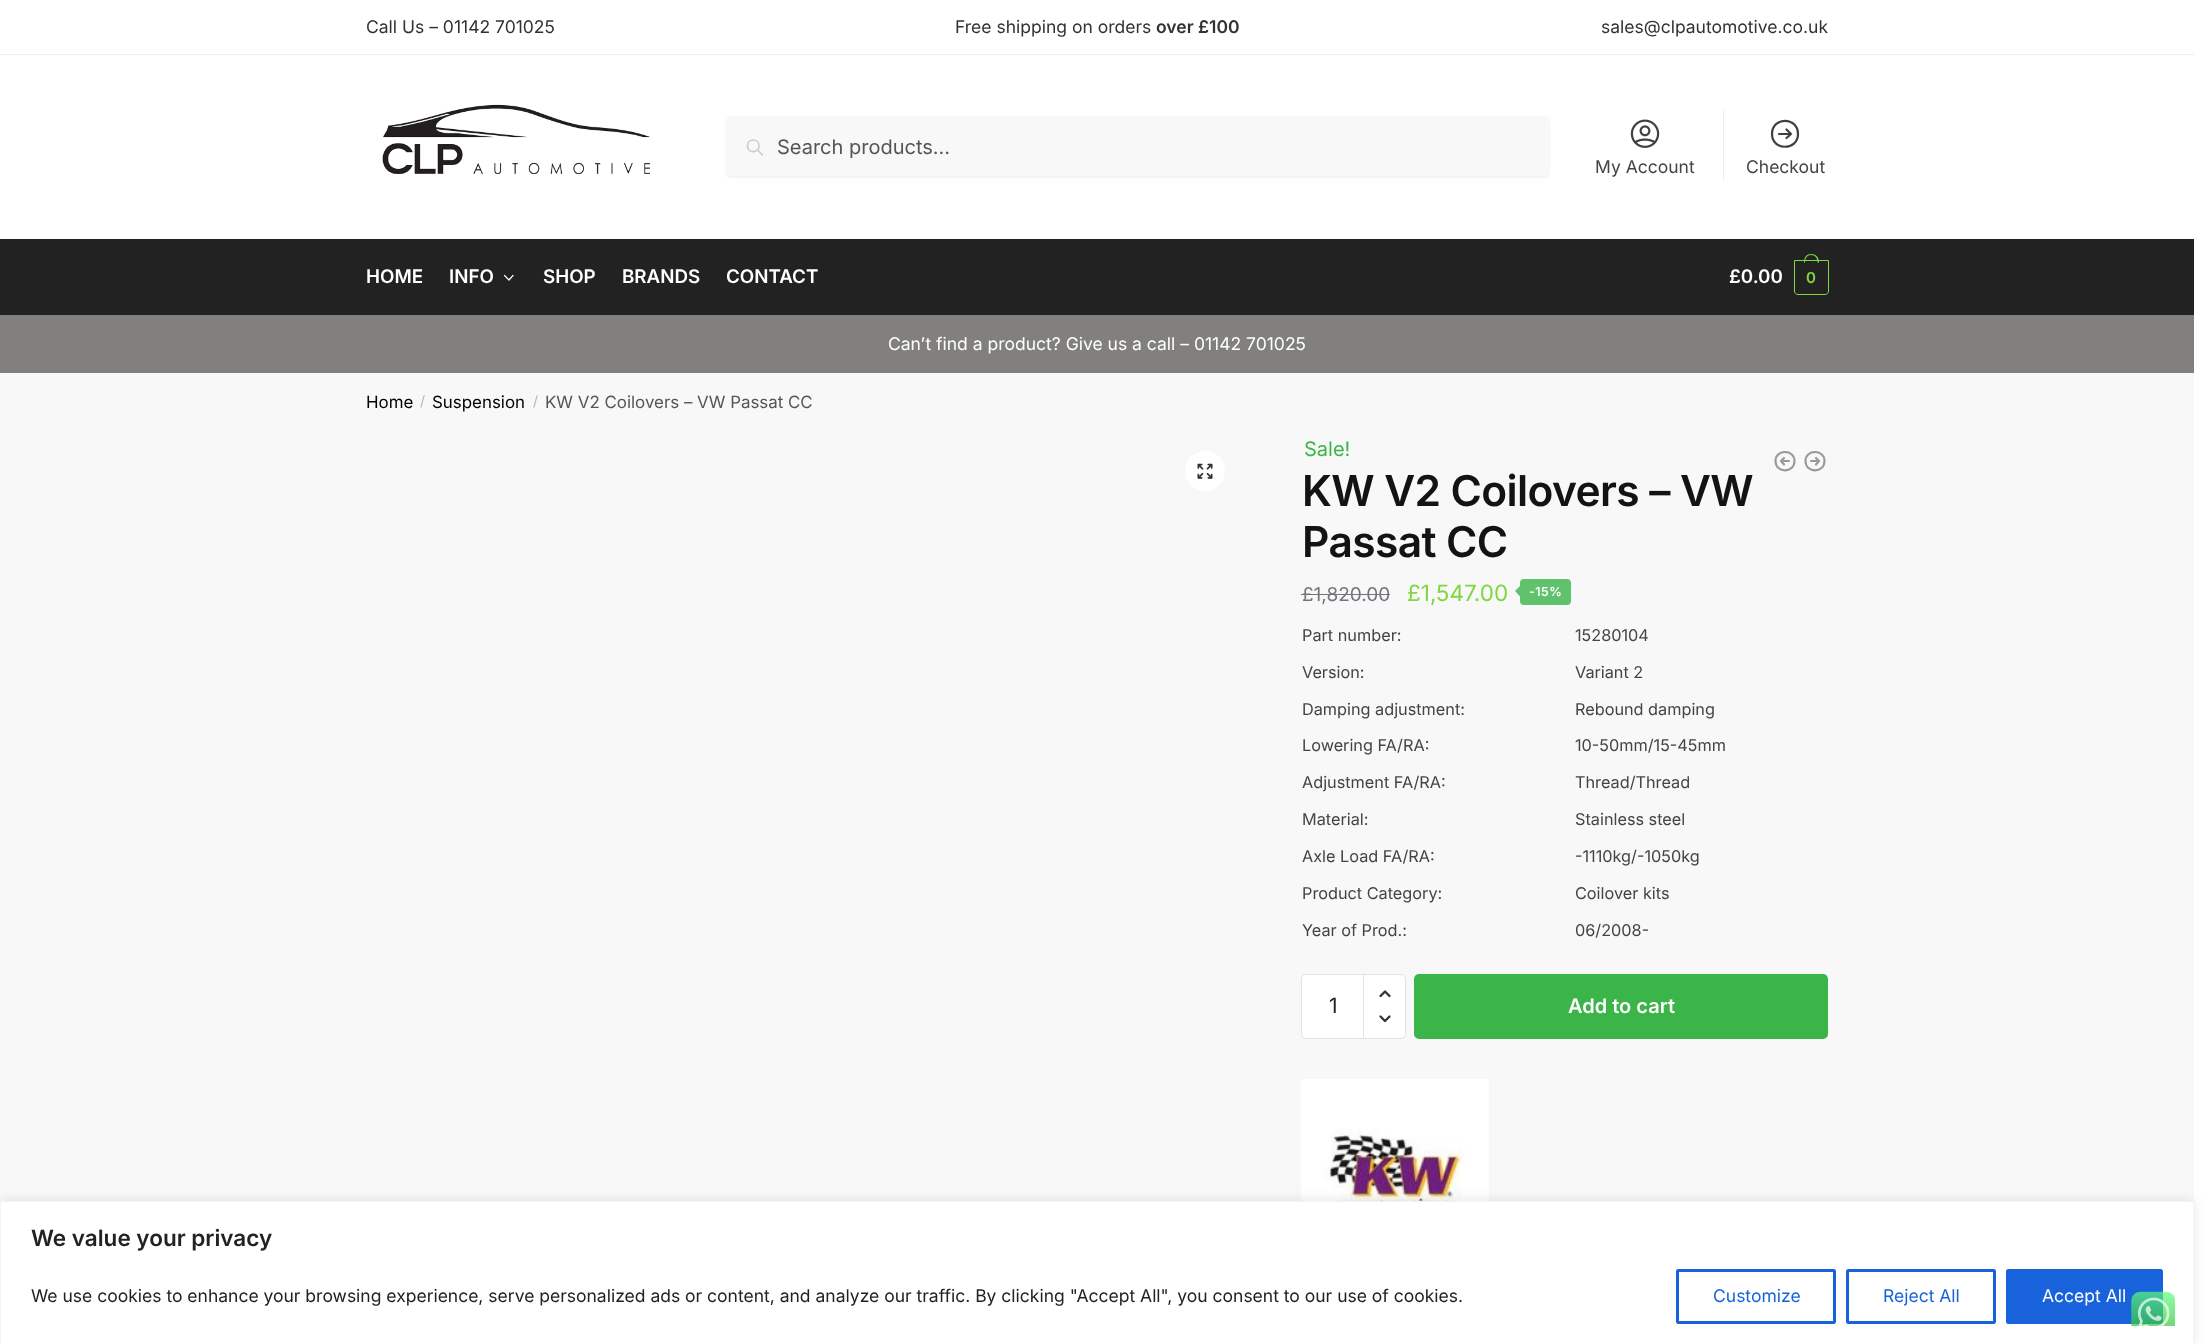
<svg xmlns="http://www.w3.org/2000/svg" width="2212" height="1344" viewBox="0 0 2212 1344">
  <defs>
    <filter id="blur1" x="-50%" y="-200%" width="200%" height="500%"><feGaussianBlur stdDeviation="1"/></filter>
    <filter id="blur2" x="-50%" y="-200%" width="200%" height="500%"><feGaussianBlur stdDeviation="6"/></filter>
  </defs>
  <rect width="100%" height="100%" fill="#ffffff"/>
  <rect x="0" y="54" width="2194" height="1" fill="#eeeeee"/>
  <text x="366" y="33" font-family="Inter" font-size="17.5" fill="#323232">Call Us – 01142 701025</text>
  <text x="955" y="33" font-family="Inter" font-size="17.5" fill="#323232">Free shipping on orders</text>
  <text x="1156" y="33" font-family="Inter" font-size="17.5" font-weight="600" fill="#323232">over £100</text>
  <text x="1601" y="33" font-family="Inter" font-size="17.5" fill="#323232">sales@clpautomotive.co.uk</text>
  <image x="382" y="104" width="268" height="70" href="img1.png"/>
  <rect x="726" y="118" width="824" height="60" rx="5" fill="#000000" fill-opacity="0.05" filter="url(#blur1)"/>
  <rect x="726" y="116" width="824" height="60" rx="5" fill="#f8f8f8"/>
  <path d="M762.5 155L757.5 150M759 146C759 153.5 747.5 153.5 747.5 146C747.5 138 759 138 759 146Z" fill="none" stroke="#cccccc" stroke-width="1.7" stroke-linecap="round" stroke-linejoin="round"/>
  <text x="777" y="154" font-family="Inter" font-size="20" fill="#555555">Search products…</text>
  <image x="1630" y="119" width="30" height="29" href="img2.png"/>
  <text x="1595" y="173" font-family="Inter" font-size="17.5" fill="#444444">My Account</text>
  <rect x="1723" y="110" width="1" height="71" fill="#eeeeee"/>
  <path d="M1786.5 129.5L1791 134M1791 134L1786.5 138M1791 134H1779M1798 134C1798 151 1772 151 1772 134C1772 116.5 1798 116.5 1798 134Z" fill="none" stroke="#404040" stroke-width="2.2" stroke-linecap="round" stroke-linejoin="round"/>
  <text x="1746" y="173" font-family="Inter" font-size="17.5" fill="#444444">Checkout</text>
  <rect x="0" y="239" width="2194" height="76" fill="#222222"/>
  <text x="366" y="283" font-family="Inter" font-size="18.75" font-weight="600" fill="#ffffff">HOME</text>
  <text x="449" y="283" font-family="Inter" font-size="18.75" font-weight="600" fill="#ffffff">INFO</text>
  <path d="M513 275.5L509 280L504.5 275.5" fill="none" stroke="#ffffff" stroke-width="1.2" stroke-linecap="round" stroke-linejoin="round"/>
  <text x="543" y="283" font-family="Inter" font-size="18.75" font-weight="600" fill="#ffffff">SHOP</text>
  <text x="622" y="283" font-family="Inter" font-size="18.75" font-weight="600" fill="#ffffff">BRANDS</text>
  <text x="726" y="283" font-family="Inter" font-size="18.75" font-weight="600" fill="#ffffff">CONTACT</text>
  <text x="1729" y="283" font-family="Inter" font-size="18.75" font-weight="600" fill="#ffffff">£0.00</text>
  <path d="M1794.5 260.5H1828.5V291C1828.5 293 1827 294.5 1825 294.5H1798C1796 294.5 1794.5 293 1794.5 291Z" fill="none" stroke="#81d742"/>
  <path d="M1811 254C1816.5 254 1819 258 1819 262.5H1804C1804 258 1806 254 1811 254ZM1811 255C1815.5 255 1817.5 258.5 1817.5 262.5H1805C1805 258.5 1807 255 1811 255Z" fill="#81d742" fill-rule="evenodd"/>
  <text x="1806" y="283" font-family="Inter" font-size="15" font-weight="600" letter-spacing="-1" fill="#81d742">0</text>
  <rect x="0" y="315" width="2194" height="58" fill="#81807f"/>
  <text x="888" y="350" font-family="Inter" font-size="17.5" fill="#ffffff">Can’t find a product? Give us a call – 01142 701025</text>
  <rect x="0" y="373" width="2194" height="828" fill="#f8f8f8"/>
  <text x="366" y="408" font-family="Inter" font-size="16.9" fill="#000000">Home</text>
  <text x="420" y="406" font-family="Inter" font-size="14" fill="#b7b7b7">/</text>
  <text x="432" y="408" font-family="Inter" font-size="16.9" fill="#000000">Suspension</text>
  <text x="533" y="406" font-family="Inter" font-size="14" fill="#b7b7b7">/</text>
  <text x="545" y="408" font-family="Inter" font-size="16.9" fill="#555555">KW V2 Coilovers – VW Passat CC</text>
  <circle cx="1205" cy="471" r="20" fill="#ffffff"/>
  <image x="1197" y="463" width="16" height="16" href="img3.png"/>
  <text x="1304" y="456" font-family="Inter" font-size="20" fill="#3bb54a">Sale!</text>
  <path d="M1784 464.5L1781 461M1781 461L1784 458M1781 461H1789M1775.5 461C1775.5 449 1794.5 449 1794.5 461C1794.5 473.5 1775.5 473.5 1775.5 461ZM1816 458L1819 461M1819 461L1816 464.5M1819 461H1811M1824.5 461C1824.5 473.5 1805.5 473.5 1805.5 461C1805.5 449 1824.5 449 1824.5 461Z" fill="none" stroke="#999999" stroke-width="2.1" stroke-linecap="round" stroke-linejoin="round"/>
  <text x="1302" y="506" font-family="Inter" font-size="42.5" font-weight="600" letter-spacing="-0.6" fill="#131315">KW V2 Coilovers – VW</text>
  <text x="1302" y="557" font-family="Inter" font-size="42.5" font-weight="600" letter-spacing="-0.6" fill="#131315">Passat CC</text>
  <text x="1302" y="601" font-family="Inter" font-size="19" fill="#72767c">£1,820.00</text>
  <rect x="1301" y="594" width="89" height="1" fill="#72767c"/>
  <text x="1407" y="601" font-family="Inter" font-size="22.5" fill="#81d742">£1,547.00</text>
  <rect x="1520" y="579" width="51" height="26" rx="4" fill="#61c26d"/>
  <path d="M1521 585V597.5L1515 591Z" fill="#61c26d"/>
  <text x="1529" y="596" font-family="Inter" font-size="12.5" font-weight="600" letter-spacing="0.5" fill="#ffffff">-15%</text>
  <text x="1302" y="641" font-family="Inter" font-size="16.25" fill="#444444">Part number:</text>
  <text x="1575" y="641" font-family="Inter" font-size="16.25" fill="#444444">15280104</text>
  <text x="1302" y="678" font-family="Inter" font-size="16.25" fill="#444444">Version:</text>
  <text x="1575" y="678" font-family="Inter" font-size="16.25" fill="#444444">Variant 2</text>
  <text x="1302" y="715" font-family="Inter" font-size="16.25" fill="#444444">Damping adjustment:</text>
  <text x="1575" y="715" font-family="Inter" font-size="16.25" fill="#444444">Rebound damping</text>
  <text x="1302" y="751" font-family="Inter" font-size="16.25" fill="#444444">Lowering FA/RA:</text>
  <text x="1575" y="751" font-family="Inter" font-size="16.25" fill="#444444">10-50mm/15-45mm</text>
  <text x="1302" y="788" font-family="Inter" font-size="16.25" fill="#444444">Adjustment FA/RA:</text>
  <text x="1575" y="788" font-family="Inter" font-size="16.25" fill="#444444">Thread/Thread</text>
  <text x="1302" y="825" font-family="Inter" font-size="16.25" fill="#444444">Material:</text>
  <text x="1575" y="825" font-family="Inter" font-size="16.25" fill="#444444">Stainless steel</text>
  <text x="1302" y="862" font-family="Inter" font-size="16.25" fill="#444444">Axle Load FA/RA:</text>
  <text x="1575" y="862" font-family="Inter" font-size="16.25" fill="#444444">-1110kg/-1050kg</text>
  <text x="1302" y="899" font-family="Inter" font-size="16.25" fill="#444444">Product Category:</text>
  <text x="1575" y="899" font-family="Inter" font-size="16.25" fill="#444444">Coilover kits</text>
  <text x="1302" y="936" font-family="Inter" font-size="16.25" fill="#444444">Year of Prod.:</text>
  <text x="1575" y="936" font-family="Inter" font-size="16.25" fill="#444444">06/2008-</text>
  <path d="M1306 974.5H1363.5V1038.5H1306C1303.5 1038.5 1301.5 1036.5 1301.5 1034V979C1301.5 976.5 1303.5 974.5 1306 974.5Z" fill="#ffffff" stroke="#e2e2e2"/>
  <text x="1329" y="1013" font-family="Inter" font-size="21" fill="#222222">1</text>
  <path d="M1363.5 974.5H1401C1403.5 974.5 1405.5 976.5 1405.5 979V1034C1405.5 1036.5 1403.5 1038.5 1401 1038.5H1363.5Z" fill="#ffffff" stroke="#e2e2e2"/>
  <image x="1379" y="990" width="12" height="8" href="img4.png"/>
  <path d="M1364 1001H1400C1403 1001 1405 1003 1405 1006V1033C1405 1036 1403 1038 1400 1038H1364Z" fill="#ffffff"/>
  <image x="1379" y="1015" width="12" height="8" href="img5.png"/>
  <rect x="1414" y="974" width="414" height="65" rx="5" fill="#3bb54a"/>
  <text x="1568" y="1013" font-family="Inter" font-size="20" font-weight="600" fill="#ffffff">Add to cart</text>
  <path d="M1614 999C1617 996.5 1621 995 1625 996C1638.5 998.5 1636.5 1019.5 1622.5 1019.5C1619.5 1019.5 1616.5 1018 1614 1016" fill="none" stroke="#3bb54a" stroke-width="1.2"/>
  <image x="1301" y="1079" width="188" height="122" href="img6.png"/>
  <rect x="0" y="1200" width="2194" height="144" fill="#acabab" fill-opacity="0.3" filter="url(#blur2)"/>
  <rect x="0.5" y="1201.5" width="2193" height="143" fill="#ffffff" stroke="#f4f4f4"/>
  <text x="31" y="1246" font-family="Inter" font-size="22.5" font-weight="600" fill="#222222">We value your privacy</text>
  <text x="31" y="1302" font-family="Inter" font-size="17.5" fill="#222222">We use cookies to enhance your browsing experience, serve personalized ads or content, and analyze our traffic. By clicking "Accept All", you consent to our use of cookies.</text>
  <rect x="1677.5" y="1270.5" width="157" height="52" rx="1" fill="none" stroke="#1863dc" stroke-width="3"/>
  <text x="1713" y="1302" font-family="Inter" font-size="17.5" fill="#1863dc">Customize</text>
  <rect x="1847.5" y="1270.5" width="147" height="52" rx="1" fill="none" stroke="#1863dc" stroke-width="3"/>
  <text x="1883" y="1302" font-family="Inter" font-size="17.5" fill="#1863dc">Reject All</text>
  <rect x="2007.5" y="1270.5" width="154" height="52" rx="1" fill="#1863dc" stroke="#1863dc" stroke-width="3"/>
  <text x="2042" y="1302" font-family="Inter" font-size="17.5" fill="#ffffff">Accept All</text>
  <image x="2131" y="1291" width="44" height="35" href="img7.png"/>
</svg>
